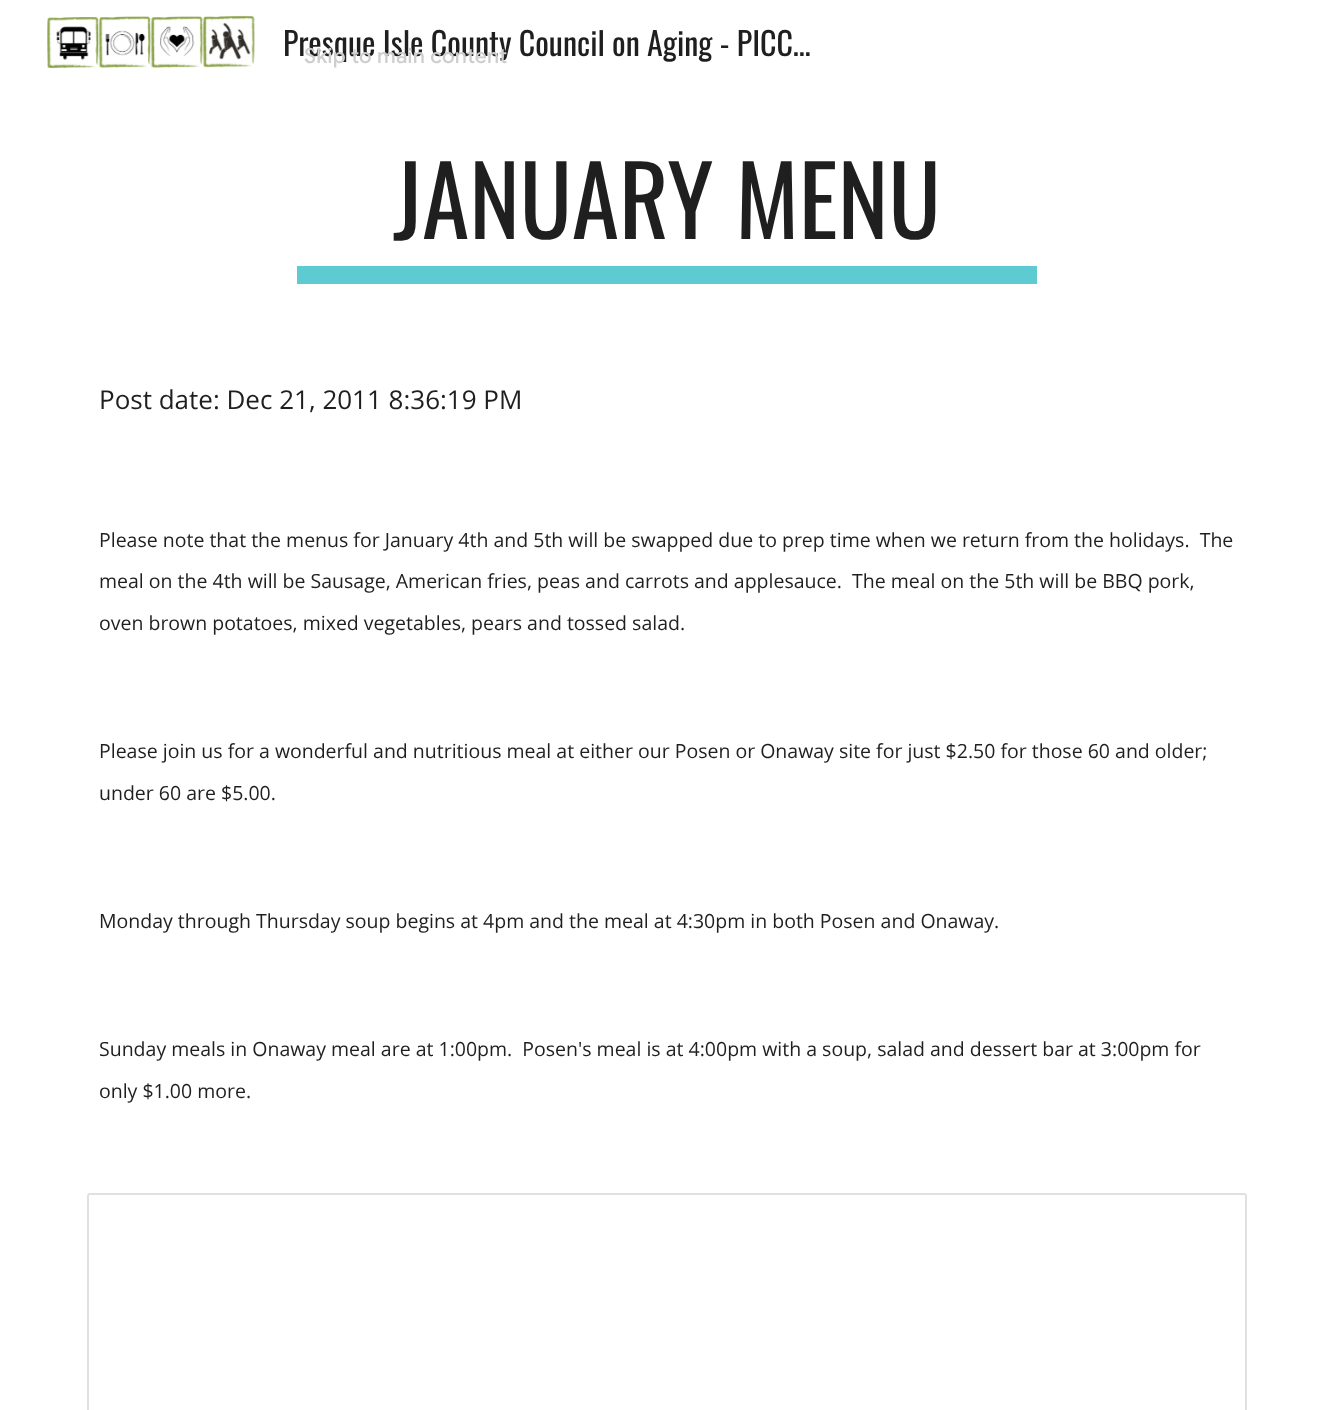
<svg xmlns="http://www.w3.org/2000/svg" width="1333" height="1410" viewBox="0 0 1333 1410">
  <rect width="100%" height="100%" fill="#ffffff"/>
  <image x="47" y="15" width="208" height="54" href="img1.png"/>
  <text x="283" y="56" font-family="Oswald" font-size="32" fill="#1f1f1f">Presque Isle County Council on Aging - PICC…</text>
  <text x="393" y="239" font-family="Oswald" font-size="96" fill="#1f1f1f">JANUARY MENU</text>
  <rect x="297" y="266" width="740" height="18" fill="#5ecbd2"/>
  <text x="99" y="409" font-family="Open Sans" font-size="26" fill="#1f1f1f">Post date: Dec 21, 2011 8:36:19 PM</text>
  <text x="99" y="547" font-family="Open Sans" font-size="19.5" fill="#1f1f1f" xml:space="preserve">Please note that the menus for January 4th and 5th will be swapped due to prep time when we return from the holidays.  The</text>
  <text x="99" y="588" font-family="Open Sans" font-size="19.5" fill="#1f1f1f" xml:space="preserve">meal on the 4th will be Sausage, American fries, peas and carrots and applesauce.  The meal on the 5th will be BBQ pork,</text>
  <text x="99" y="630" font-family="Open Sans" font-size="19.5" fill="#1f1f1f">oven brown potatoes, mixed vegetables, pears and tossed salad.</text>
  <text x="99" y="758" font-family="Open Sans" font-size="19.5" fill="#1f1f1f">Please join us for a wonderful and nutritious meal at either our Posen or Onaway site for just $2.50 for those 60 and older;</text>
  <text x="99" y="800" font-family="Open Sans" font-size="19.5" fill="#1f1f1f">under 60 are $5.00.</text>
  <text x="99" y="928" font-family="Open Sans" font-size="19.5" fill="#1f1f1f">Monday through Thursday soup begins at 4pm and the meal at 4:30pm in both Posen and Onaway.</text>
  <text x="99" y="1056" font-family="Open Sans" font-size="19.5" fill="#1f1f1f" xml:space="preserve">Sunday meals in Onaway meal are at 1:00pm.  Posen's meal is at 4:00pm with a soup, salad and dessert bar at 3:00pm for</text>
  <text x="99" y="1098" font-family="Open Sans" font-size="19.5" fill="#1f1f1f">only $1.00 more.</text>
  <rect x="88" y="1194" width="1158" height="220" rx="2" fill="none" stroke="#e0e0e0" stroke-width="2"/>
  <text x="304" y="63" font-family="Google Sans" font-size="21" font-weight="500" letter-spacing="0.25" fill="#cecece">Skip to main content</text>
</svg>
